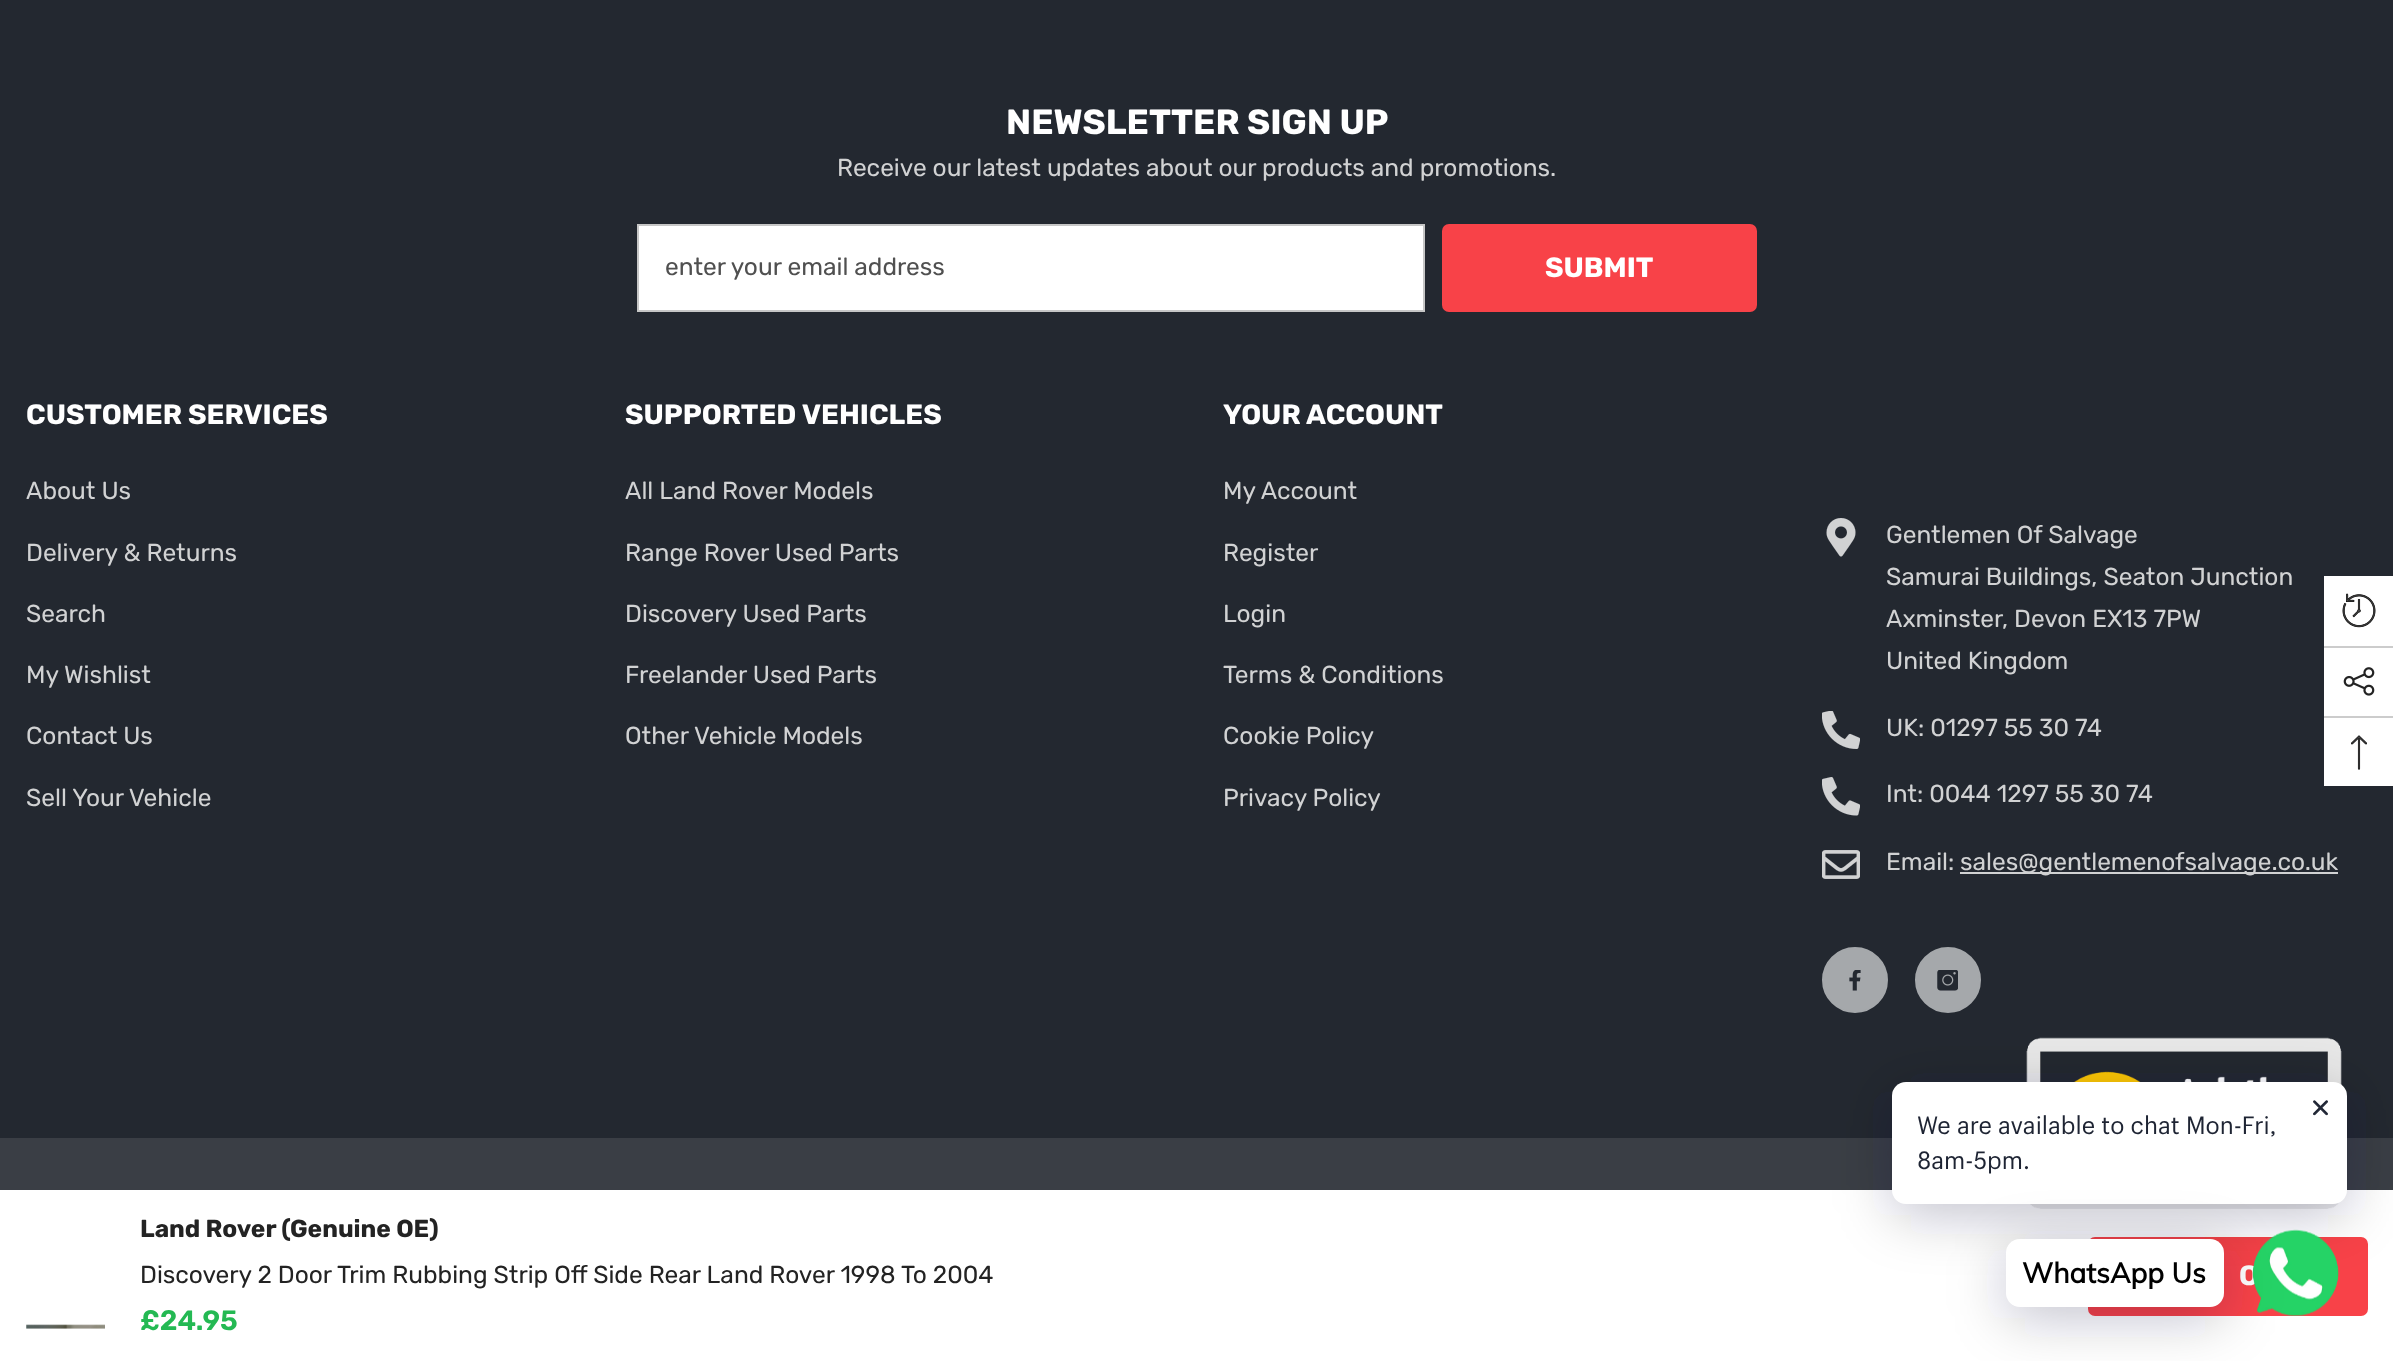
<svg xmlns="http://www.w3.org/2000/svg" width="2393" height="1361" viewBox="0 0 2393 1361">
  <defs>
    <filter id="blur1" x="-50%" y="-200%" width="200%" height="500%"><feGaussianBlur stdDeviation="28"/></filter>
  </defs>
  <rect width="100%" height="100%" fill="#3a3e45"/>
  <rect x="0" y="0" width="2393" height="1138" fill="#232830"/>
  <text x="1006" y="134" font-family="Rubik" font-size="35" font-weight="bold" fill="#ffffff">NEWSLETTER SIGN UP</text>
  <text x="837" y="176" font-family="Rubik" font-size="24.5" fill="#d1d2d3">Receive our latest updates about our products and promotions.</text>
  <rect x="638" y="225" width="786" height="86" fill="#ffffff" stroke="#c6c6c6" stroke-width="2"/>
  <text x="665" y="275" font-family="Rubik" font-size="24.5" fill="#505050">enter your email address</text>
  <rect x="1443" y="225" width="313" height="86" rx="6" fill="#f84248" stroke="#f84248" stroke-width="2"/>
  <text x="1545" y="277" font-family="Rubik" font-size="28" font-weight="bold" fill="#ffffff">SUBMIT</text>
  <text x="26" y="424" font-family="Rubik" font-size="28" font-weight="bold" fill="#ffffff">CUSTOMER SERVICES</text>
  <text x="26" y="499" font-family="Rubik" font-size="24.5" fill="#d1d2d3">About Us</text>
  <text x="26" y="561" font-family="Rubik" font-size="24.5" fill="#d1d2d3">Delivery &amp; Returns</text>
  <text x="26" y="622" font-family="Rubik" font-size="24.5" fill="#d1d2d3">Search</text>
  <text x="26" y="683" font-family="Rubik" font-size="24.5" fill="#d1d2d3">My Wishlist</text>
  <text x="26" y="744" font-family="Rubik" font-size="24.5" fill="#d1d2d3">Contact Us</text>
  <text x="26" y="806" font-family="Rubik" font-size="24.5" fill="#d1d2d3">Sell Your Vehicle</text>
  <text x="625" y="424" font-family="Rubik" font-size="28" font-weight="bold" fill="#ffffff">SUPPORTED VEHICLES</text>
  <text x="625" y="499" font-family="Rubik" font-size="24.5" fill="#d1d2d3">All Land Rover Models</text>
  <text x="625" y="561" font-family="Rubik" font-size="24.5" fill="#d1d2d3">Range Rover Used Parts</text>
  <text x="625" y="622" font-family="Rubik" font-size="24.5" fill="#d1d2d3">Discovery Used Parts</text>
  <text x="625" y="683" font-family="Rubik" font-size="24.5" fill="#d1d2d3">Freelander Used Parts</text>
  <text x="625" y="744" font-family="Rubik" font-size="24.5" fill="#d1d2d3">Other Vehicle Models</text>
  <text x="1223" y="424" font-family="Rubik" font-size="28" font-weight="bold" fill="#ffffff">YOUR ACCOUNT</text>
  <text x="1223" y="499" font-family="Rubik" font-size="24.5" fill="#d1d2d3">My Account</text>
  <text x="1223" y="561" font-family="Rubik" font-size="24.5" fill="#d1d2d3">Register</text>
  <text x="1223" y="622" font-family="Rubik" font-size="24.5" fill="#d1d2d3">Login</text>
  <text x="1223" y="683" font-family="Rubik" font-size="24.5" fill="#d1d2d3">Terms &amp; Conditions</text>
  <text x="1223" y="744" font-family="Rubik" font-size="24.5" fill="#d1d2d3">Cookie Policy</text>
  <text x="1223" y="806" font-family="Rubik" font-size="24.5" fill="#d1d2d3">Privacy Policy</text>
  <image x="1826" y="518" width="30" height="39" href="img1.png"/>
  <text x="1886" y="543" font-family="Rubik" font-size="24.5" fill="#d1d2d3">Gentlemen Of Salvage</text>
  <text x="1886" y="585" font-family="Rubik" font-size="24.5" fill="#d1d2d3">Samurai Buildings, Seaton Junction</text>
  <text x="1886" y="627" font-family="Rubik" font-size="24.5" fill="#d1d2d3">Axminster, Devon EX13 7PW</text>
  <text x="1886" y="669" font-family="Rubik" font-size="24.5" fill="#d1d2d3">United Kingdom</text>
  <image x="1822" y="711" width="38" height="38" href="img2.png"/>
  <text x="1886" y="736" font-family="Rubik" font-size="24.5" fill="#d1d2d3">UK: 01297 55 30 74</text>
  <image x="1822" y="777" width="38" height="39" href="img3.png"/>
  <text x="1886" y="802" font-family="Rubik" font-size="24.5" fill="#d1d2d3">Int: 0044 1297 55 30 74</text>
  <image x="1822" y="850" width="38" height="29" href="img4.png"/>
  <text x="1886" y="870" font-family="Rubik" font-size="24.5" fill="#d1d2d3">Email:</text>
  <rect x="1960" y="872" width="378" height="2" fill="#d1d2d3"/>
  <text x="1960" y="870" font-family="Rubik" font-size="24.5" fill="#d1d2d3">sales@gentlemenofsalvage.co.uk</text>
  <circle cx="1855" cy="980" r="32" fill="#a5a8ab" stroke="#a5a8ab" stroke-width="2"/>
  <image x="1849" y="970" width="12" height="21" href="img5.png"/>
  <circle cx="1948" cy="980" r="32" fill="#a5a8ab" stroke="#a5a8ab" stroke-width="2"/>
  <image x="1937" y="970" width="21" height="21" href="img6.png"/>
  <rect x="0" y="1190" width="2393" height="171" fill="#ffffff"/>
  <image x="26" y="1324" width="79" height="5" href="img7.png"/>
  <text x="140" y="1237" font-family="Rubik" font-size="24.5" font-weight="bold" fill="#232323">Land Rover (Genuine OE)</text>
  <text x="140" y="1283" font-family="Rubik" font-size="24.5" fill="#232323">Discovery 2 Door Trim Rubbing Strip Off Side Rear Land Rover 1998 To 2004</text>
  <text x="140" y="1330" font-family="Rubik" font-size="28" font-weight="600" fill="#24b953">£24.95</text>
  <rect x="2089" y="1238" width="278" height="77" rx="6" fill="#f84248" stroke="#f84248" stroke-width="2"/>
  <text x="2239" y="1285" font-family="Rubik" font-size="28" font-weight="bold" fill="#ffffff">O</text>
  <rect x="2324" y="576" width="69" height="210" fill="#ffffff"/>
  <image x="2342" y="593" width="34" height="35" href="img8.png"/>
  <rect x="2324" y="646" width="69" height="2" fill="#cccccc"/>
  <image x="2343" y="667" width="32" height="29" href="img9.png"/>
  <rect x="2324" y="716" width="69" height="2" fill="#cccccc"/>
  <image x="2351" y="735" width="16" height="35" href="img10.png"/>
  <image x="2026" y="1037" width="316" height="172" href="img11.png"/>
  <rect x="1892" y="1092" width="455" height="123" rx="14" fill="#00122e" fill-opacity="0.24" filter="url(#blur1)"/>
  <rect x="1892" y="1082" width="455" height="122" rx="14" fill="#ffffff"/>
  <image x="2313" y="1100" width="15" height="16" href="img12.png"/>
  <text x="1917" y="1134" font-family="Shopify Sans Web" font-size="24.5" fill="#1e2433">We are available to chat Mon-Fri,</text>
  <text x="1917" y="1169" font-family="Shopify Sans Web" font-size="24.5" fill="#1e2433">8am-5pm.</text>
  <image x="2252" y="1229" width="87" height="87" href="img13.png"/>
  <rect x="2006" y="1250" width="218" height="68" rx="14" fill="#00122e" fill-opacity="0.24" filter="url(#blur1)"/>
  <rect x="2006" y="1239" width="218" height="68" rx="14" fill="#ffffff"/>
  <text x="2022" y="1283" font-family="Muli" font-size="28" font-weight="bold" fill="#000000">WhatsApp Us</text>
</svg>
